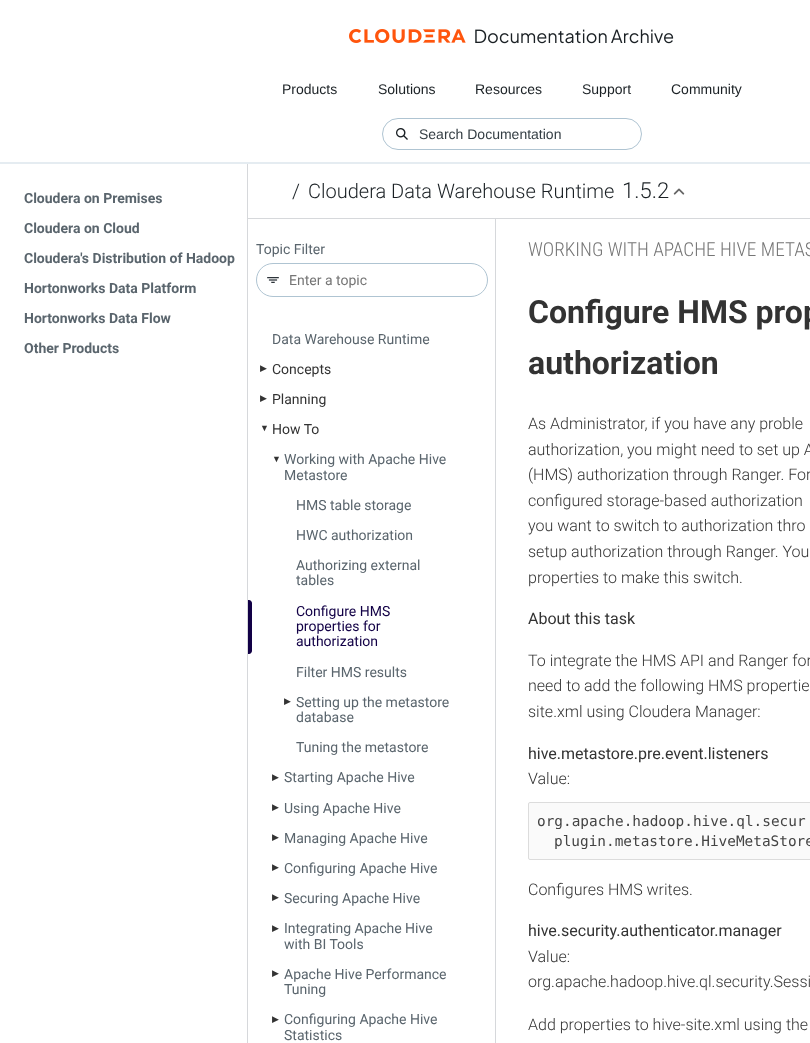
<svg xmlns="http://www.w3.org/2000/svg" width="810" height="1043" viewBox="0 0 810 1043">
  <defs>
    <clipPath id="clip1"><rect x="248" y="218" width="248" height="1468"/></clipPath>
  </defs>
  <rect width="100%" height="100%" fill="#ffffff"/>
  <rect x="0" y="162" width="810" height="2" fill="#e5ecf1"/>
  <image x="349" y="29" width="325" height="15" href="img1.png"/>
  <text x="282" y="94" font-family="Liberation Sans" font-size="14" fill="#1a2024">Products</text>
  <text x="378" y="94" font-family="Liberation Sans" font-size="14" fill="#1a2024">Solutions</text>
  <text x="475" y="94" font-family="Liberation Sans" font-size="14" fill="#1a2024">Resources</text>
  <text x="582" y="94" font-family="Liberation Sans" font-size="14" fill="#1a2024">Support</text>
  <text x="671" y="94" font-family="Liberation Sans" font-size="14" fill="#1a2024">Community</text>
  <rect x="382.5" y="118.5" width="259" height="31" rx="15.5" fill="none" stroke="#afc4d2"/>
  <image x="396" y="128" width="12" height="12" href="img2.png"/>
  <text x="419" y="139" font-family="Liberation Sans" font-size="14" fill="#333d43">Search Documentation</text>
  <rect x="247" y="164" width="1" height="879" fill="#d6d8db"/>
  <text x="24" y="203" font-family="Roboto" font-size="14" font-weight="bold" fill="#5a656d">Cloudera on Premises</text>
  <text x="24" y="233" font-family="Roboto" font-size="14" font-weight="bold" fill="#5a656d">Cloudera on Cloud</text>
  <text x="24" y="263" font-family="Roboto" font-size="14" font-weight="bold" fill="#5a656d">Cloudera's Distribution of Hadoop</text>
  <text x="24" y="293" font-family="Roboto" font-size="14" font-weight="bold" fill="#5a656d">Hortonworks Data Platform</text>
  <text x="24" y="323" font-family="Roboto" font-size="14" font-weight="bold" fill="#5a656d">Hortonworks Data Flow</text>
  <text x="24" y="353" font-family="Roboto" font-size="14" font-weight="bold" fill="#5a656d">Other Products</text>
  <rect x="496" y="218" width="314" height="1" fill="#d6d8db"/>
  <text x="292" y="198" font-family="Roboto" font-size="20" font-weight="300" fill="#1a2024">/</text>
  <text x="308" y="198" font-family="Roboto" font-size="20" font-weight="300" fill="#1a2024">Cloudera Data Warehouse Runtime</text>
  <text x="622" y="198" font-family="Roboto" font-size="22" font-weight="300" fill="#1a2024">1.5.2</text>
  <image x="673" y="188" width="12" height="7" href="img3.png"/>
  <text x="528" y="256" font-family="Roboto Condensed" font-size="19.25" font-weight="300" fill="#757575">WORKING WITH APACHE HIVE METAS</text>
  <text x="528" y="323" font-family="Roboto" font-size="32" font-weight="bold" fill="#333333">Configure HMS prop</text>
  <text x="528" y="374" font-family="Roboto" font-size="32" font-weight="bold" fill="#333333">authorization</text>
  <text x="528" y="429" font-family="Roboto" font-size="16" font-weight="300" fill="#333333">As Administrator, if you have any proble</text>
  <text x="528" y="455" font-family="Roboto" font-size="16" font-weight="300" fill="#333333">authorization, you might need to set up A</text>
  <text x="528" y="480" font-family="Roboto" font-size="16" font-weight="300" fill="#333333">(HMS) authorization through Ranger. For</text>
  <text x="528" y="506" font-family="Roboto" font-size="16" font-weight="300" fill="#333333">configured storage-based authorization</text>
  <text x="528" y="531" font-family="Roboto" font-size="16" font-weight="300" fill="#333333">you want to switch to authorization thro</text>
  <text x="528" y="557" font-family="Roboto" font-size="16" font-weight="300" fill="#333333">setup authorization through Ranger. You</text>
  <text x="528" y="583" font-family="Roboto" font-size="16" font-weight="300" fill="#333333">properties to make this switch.</text>
  <text x="528" y="624" font-family="Roboto" font-size="16" fill="#333333">About this task</text>
  <text x="528" y="666" font-family="Roboto" font-size="16" font-weight="300" fill="#333333">To integrate the HMS API and Ranger for</text>
  <text x="528" y="691" font-family="Roboto" font-size="16" font-weight="300" fill="#333333">need to add the following HMS propertie</text>
  <text x="528" y="717" font-family="Roboto" font-size="16" font-weight="300" fill="#333333">site.xml using Cloudera Manager:</text>
  <text x="528" y="759" font-family="Roboto" font-size="16" fill="#333333">hive.metastore.pre.event.listeners</text>
  <text x="528" y="784" font-family="Roboto" font-size="16" font-weight="300" fill="#333333">Value:</text>
  <rect x="528.5" y="802.5" width="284" height="57" rx="1.5" fill="#fafafa" stroke="#dcdcdc"/>
  <text x="537" y="826" font-family="DejaVu Sans Mono" font-size="14.4" fill="#444444">org.apache.hadoop.hive.ql.secur</text>
  <text x="554" y="846" font-family="DejaVu Sans Mono" font-size="14.4" fill="#444444">plugin.metastore.HiveMetaStore</text>
  <text x="528" y="895" font-family="Roboto" font-size="16" font-weight="300" fill="#333333">Configures HMS writes.</text>
  <text x="528" y="936" font-family="Roboto" font-size="16" fill="#333333">hive.security.authenticator.manager</text>
  <text x="528" y="962" font-family="Roboto" font-size="16" font-weight="300" fill="#333333">Value:</text>
  <text x="528" y="987" font-family="Roboto" font-size="16" font-weight="300" fill="#333333">org.apache.hadoop.hive.ql.security.Sessi</text>
  <text x="528" y="1030" font-family="Roboto" font-size="16" font-weight="300" fill="#333333">Add properties to hive-site.xml using the</text>
  <g clip-path="url(#clip1)">
    <path d="M149 119H595V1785H149ZM247 219H495V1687H247Z" fill="#d6d8db" fill-rule="evenodd"/>
  </g>
  <text x="256" y="254" font-family="Roboto" font-size="14" fill="#5a656d">Topic Filter</text>
  <rect x="256.5" y="263.5" width="231" height="33" rx="16.5" fill="none" stroke="#afc4d2"/>
  <image x="267" y="277" width="12" height="6" href="img4.png"/>
  <text x="289" y="285" font-family="Roboto" font-size="14" fill="#757575">Enter a topic</text>
  <text x="272" y="344" font-family="Roboto" font-size="14" fill="#5a656d">Data Warehouse Runtime</text>
  <text x="260" y="371" font-family="DejaVu Sans" font-size="9" fill="#333333">▶︎</text>
  <text x="272" y="374" font-family="Roboto" font-size="14" fill="#333333">Concepts</text>
  <text x="260" y="401" font-family="DejaVu Sans" font-size="9" fill="#333333">▶︎</text>
  <text x="272" y="404" font-family="Roboto" font-size="14" fill="#333333">Planning</text>
  <text x="260" y="431" font-family="Liberation Sans" font-size="9" fill="#333333">▼</text>
  <text x="272" y="434" font-family="Roboto" font-size="14" fill="#333333">How To</text>
  <text x="272" y="462" font-family="Liberation Sans" font-size="9" fill="#333333">▼</text>
  <text x="284" y="464" font-family="Roboto" font-size="14" fill="#5a656d">Working with Apache Hive</text>
  <text x="284" y="480" font-family="Roboto" font-size="14" fill="#5a656d">Metastore</text>
  <text x="296" y="510" font-family="Roboto" font-size="14" fill="#5a656d">HMS table storage</text>
  <text x="296" y="540" font-family="Roboto" font-size="14" fill="#5a656d">HWC authorization</text>
  <text x="296" y="570" font-family="Roboto" font-size="14" fill="#5a656d">Authorizing external</text>
  <text x="296" y="585" font-family="Roboto" font-size="14" fill="#5a656d">tables</text>
  <path d="M248 600H249C250.5 600 252 601.5 252 603V651C252 652.5 250.5 654 249 654H248Z" fill="#120046"/>
  <text x="296" y="616" font-family="Roboto" font-size="14" fill="#120046">Configure HMS</text>
  <text x="296" y="631" font-family="Roboto" font-size="14" fill="#120046">properties for</text>
  <text x="296" y="646" font-family="Roboto" font-size="14" fill="#120046">authorization</text>
  <text x="296" y="677" font-family="Roboto" font-size="14" fill="#5a656d">Filter HMS results</text>
  <text x="284" y="704" font-family="DejaVu Sans" font-size="9" fill="#333333">▶︎</text>
  <text x="296" y="707" font-family="Roboto" font-size="14" fill="#5a656d">Setting up the metastore</text>
  <text x="296" y="722" font-family="Roboto" font-size="14" fill="#5a656d">database</text>
  <text x="296" y="752" font-family="Roboto" font-size="14" fill="#5a656d">Tuning the metastore</text>
  <text x="272" y="780" font-family="DejaVu Sans" font-size="9" fill="#333333">▶︎</text>
  <text x="284" y="782" font-family="Roboto" font-size="14" fill="#5a656d">Starting Apache Hive</text>
  <text x="272" y="810" font-family="DejaVu Sans" font-size="9" fill="#333333">▶︎</text>
  <text x="284" y="813" font-family="Roboto" font-size="14" fill="#5a656d">Using Apache Hive</text>
  <text x="272" y="840" font-family="DejaVu Sans" font-size="9" fill="#333333">▶︎</text>
  <text x="284" y="843" font-family="Roboto" font-size="14" fill="#5a656d">Managing Apache Hive</text>
  <text x="272" y="870" font-family="DejaVu Sans" font-size="9" fill="#333333">▶︎</text>
  <text x="284" y="873" font-family="Roboto" font-size="14" fill="#5a656d">Configuring Apache Hive</text>
  <text x="272" y="900" font-family="DejaVu Sans" font-size="9" fill="#333333">▶︎</text>
  <text x="284" y="903" font-family="Roboto" font-size="14" fill="#5a656d">Securing Apache Hive</text>
  <text x="272" y="931" font-family="DejaVu Sans" font-size="9" fill="#333333">▶︎</text>
  <text x="284" y="933" font-family="Roboto" font-size="14" fill="#5a656d">Integrating Apache Hive</text>
  <text x="284" y="949" font-family="Roboto" font-size="14" fill="#5a656d">with BI Tools</text>
  <text x="272" y="976" font-family="DejaVu Sans" font-size="9" fill="#333333">▶︎</text>
  <text x="284" y="979" font-family="Roboto" font-size="14" fill="#5a656d">Apache Hive Performance</text>
  <text x="284" y="994" font-family="Roboto" font-size="14" fill="#5a656d">Tuning</text>
  <text x="272" y="1022" font-family="DejaVu Sans" font-size="9" fill="#333333">▶︎</text>
  <text x="284" y="1024" font-family="Roboto" font-size="14" fill="#5a656d">Configuring Apache Hive</text>
  <text x="284" y="1040" font-family="Roboto" font-size="14" fill="#5a656d">Statistics</text>
</svg>
